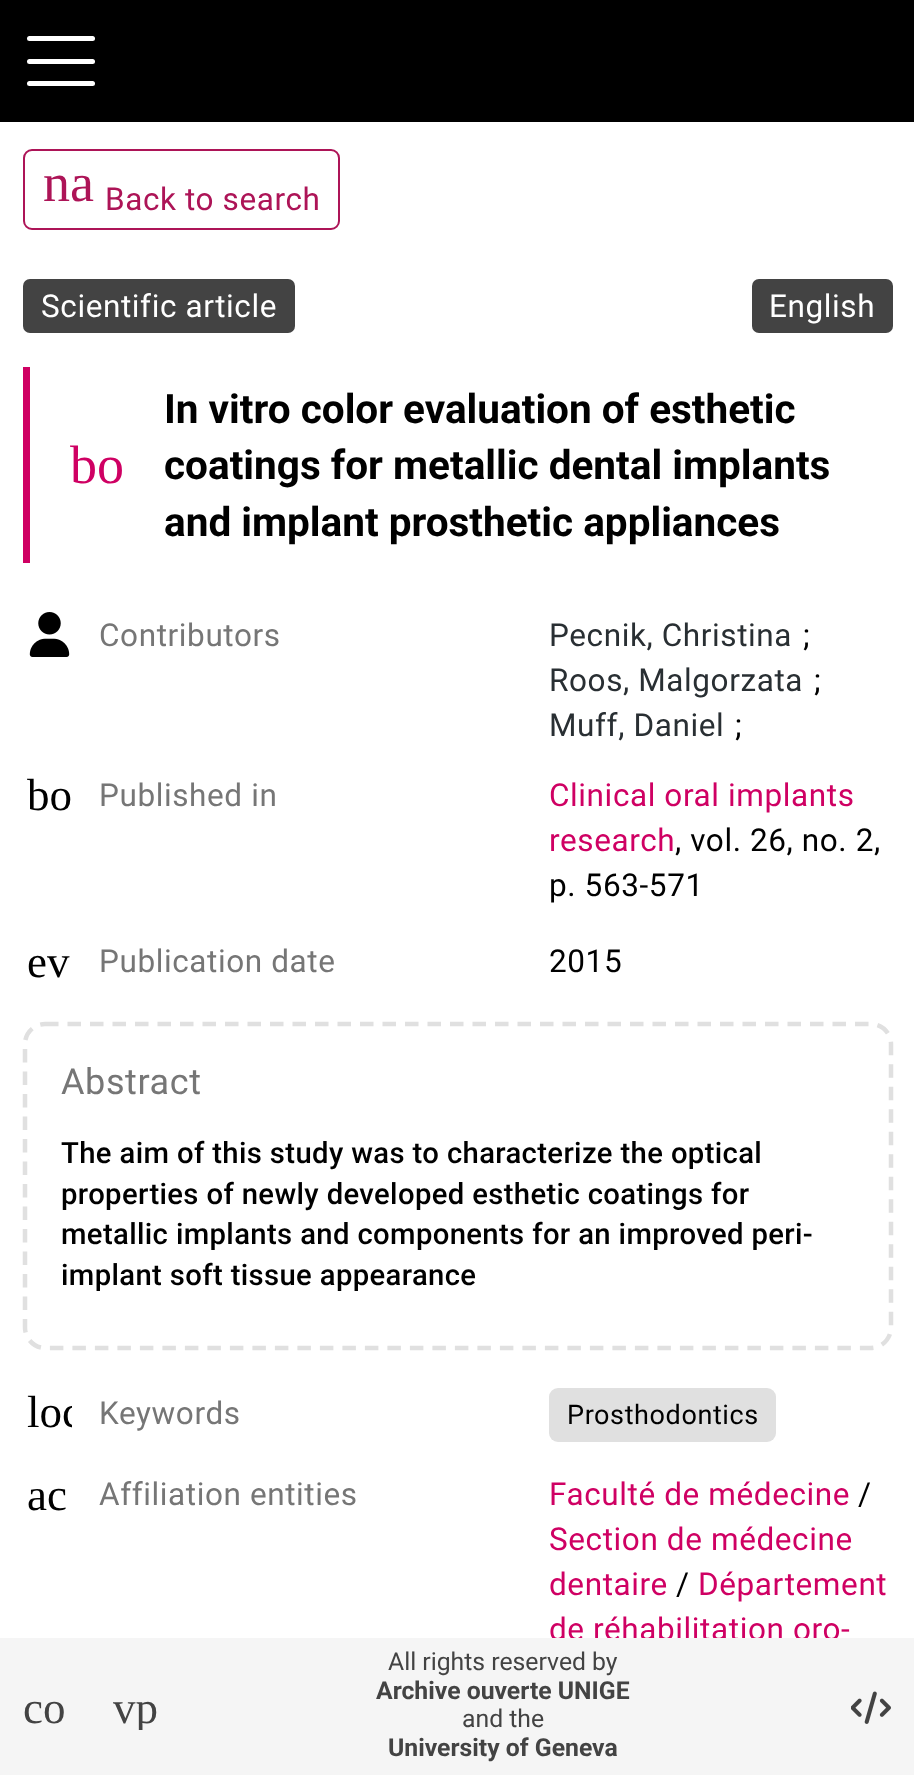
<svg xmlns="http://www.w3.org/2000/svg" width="914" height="1775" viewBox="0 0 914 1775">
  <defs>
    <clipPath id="clip1"><rect x="27" y="1388" width="45" height="45"/></clipPath>
    <clipPath id="clip2"><rect x="113" y="1685" width="45" height="45"/></clipPath>
  </defs>
  <rect width="100%" height="100%" fill="#ffffff"/>
  <rect x="0" y="0" width="914" height="122" fill="#000000"/>
  <rect x="27" y="36" width="68" height="5" rx="2.5" fill="#ffffff"/>
  <rect x="27" y="59" width="68" height="5" rx="2.5" fill="#ffffff"/>
  <rect x="27" y="81" width="68" height="5" rx="2.5" fill="#ffffff"/>
  <rect x="24" y="150" width="315" height="79" rx="8" fill="none" stroke="#ad1457" stroke-width="2"/>
  <text x="43" y="201" font-family="Liberation Serif" font-size="54" fill="#ad1457">na</text>
  <text x="105" y="210" font-family="Roboto" font-size="31.5" letter-spacing="0.6" fill="#ad1457">Back to search</text>
  <rect x="23" y="279" width="272" height="54" rx="7" fill="#434343"/>
  <text x="41" y="317" font-family="Roboto" font-size="31.5" letter-spacing="0.6" fill="#ffffff">Scientific article</text>
  <rect x="752" y="279" width="141" height="54" rx="7" fill="#434343"/>
  <text x="769" y="317" font-family="Roboto" font-size="31.5" letter-spacing="0.6" fill="#ffffff">English</text>
  <rect x="23" y="367" width="7" height="196" fill="#cf0063"/>
  <text x="70" y="483" font-family="Liberation Serif" font-size="54" fill="#cf0063">bo</text>
  <text x="164" y="423" font-family="Roboto" font-size="40.5" font-weight="bold" fill="#000000">In vitro color evaluation of esthetic</text>
  <text x="164" y="479" font-family="Roboto" font-size="40.5" font-weight="bold" fill="#000000">coatings for metallic dental implants</text>
  <text x="164" y="536" font-family="Roboto" font-size="40.5" font-weight="bold" fill="#000000">and implant prosthetic appliances</text>
  <image x="29" y="612" width="41" height="45" href="img1.png"/>
  <text x="99" y="646" font-family="Roboto" font-size="31.5" letter-spacing="0.6" fill="#767676">Contributors</text>
  <text x="549" y="646" font-family="Roboto" font-size="31.5" letter-spacing="0.6" fill="#292f33">Pecnik, Christina</text>
  <text x="803" y="646" font-family="Roboto" font-size="31.5" letter-spacing="0.6" fill="#000000">;</text>
  <text x="549" y="691" font-family="Roboto" font-size="31.5" letter-spacing="0.6" fill="#292f33">Roos, Malgorzata</text>
  <text x="814" y="691" font-family="Roboto" font-size="31.5" letter-spacing="0.6" fill="#000000">;</text>
  <text x="549" y="736" font-family="Roboto" font-size="31.5" letter-spacing="0.6" fill="#292f33">Muff, Daniel</text>
  <text x="735" y="736" font-family="Roboto" font-size="31.5" letter-spacing="0.6" fill="#000000">;</text>
  <text x="27" y="810" font-family="Liberation Serif" font-size="45" fill="#000000">bo</text>
  <text x="99" y="806" font-family="Roboto" font-size="31.5" letter-spacing="0.6" fill="#767676">Published in</text>
  <text x="549" y="806" font-family="Roboto" font-size="31.5" letter-spacing="0.6" fill="#cf0063">Clinical oral implants</text>
  <text x="549" y="851" font-family="Roboto" font-size="31.5" letter-spacing="0.6" fill="#cf0063">research</text>
  <text x="675" y="851" font-family="Roboto" font-size="31.5" letter-spacing="0.6" fill="#000000">, vol. 26, no. 2,</text>
  <text x="549" y="896" font-family="Roboto" font-size="31.5" letter-spacing="0.6" fill="#000000">p. 563-571</text>
  <text x="27" y="977" font-family="Liberation Serif" font-size="45" fill="#000000">ev</text>
  <text x="99" y="972" font-family="Roboto" font-size="31.5" letter-spacing="0.6" fill="#767676">Publication date</text>
  <text x="549" y="972" font-family="Roboto" font-size="31.5" letter-spacing="0.6" fill="#000000">2015</text>
  <path d="M45 1024H871C882 1024 891 1033 891 1044V1327.5C891 1338.5 882 1348 871 1348H45C34 1348 25 1338.5 25 1327.5V1044C25 1033 34 1024 45 1024Z" fill="none" stroke="#e0e0e0" stroke-width="4.5" stroke-dasharray="13.5 9"/>
  <text x="61" y="1094" font-family="Roboto" font-size="36" letter-spacing="0.6" fill="#767676">Abstract</text>
  <text x="61" y="1163" font-family="Roboto" font-size="29.25" font-weight="500" letter-spacing="0.37" fill="#000000">The aim of this study was to characterize the optical</text>
  <text x="61" y="1204" font-family="Roboto" font-size="29.25" font-weight="500" letter-spacing="0.37" fill="#000000">properties of newly developed esthetic coatings for</text>
  <text x="61" y="1244" font-family="Roboto" font-size="29.25" font-weight="500" letter-spacing="0.37" fill="#000000">metallic implants and components for an improved peri-</text>
  <text x="61" y="1285" font-family="Roboto" font-size="29.25" font-weight="500" letter-spacing="0.37" fill="#000000">implant soft tissue appearance</text>
  <g clip-path="url(#clip1)">
    <text x="27" y="1427" font-family="Liberation Serif" font-size="45" fill="#000000">loc</text>
  </g>
  <text x="99" y="1424" font-family="Roboto" font-size="31.5" letter-spacing="0.6" fill="#767676">Keywords</text>
  <rect x="549" y="1388" width="227" height="54" rx="9" fill="#e0e0e0"/>
  <text x="567" y="1424" font-family="Roboto" font-size="27" letter-spacing="0.6" fill="#000000">Prosthodontics</text>
  <text x="27" y="1510" font-family="Liberation Serif" font-size="45" fill="#000000">ac</text>
  <text x="99" y="1505" font-family="Roboto" font-size="31.5" letter-spacing="0.6" fill="#767676">Affiliation entities</text>
  <text x="549" y="1505" font-family="Roboto" font-size="31.5" letter-spacing="0.6" fill="#cf0063">Faculté de médecine</text>
  <text x="858" y="1505" font-family="Roboto" font-size="31.5" letter-spacing="0.6" fill="#000000">/</text>
  <text x="549" y="1550" font-family="Roboto" font-size="31.5" letter-spacing="0.6" fill="#cf0063">Section de médecine</text>
  <text x="549" y="1595" font-family="Roboto" font-size="31.5" letter-spacing="0.6" fill="#cf0063">dentaire</text>
  <text x="676" y="1595" font-family="Roboto" font-size="31.5" letter-spacing="0.6" fill="#000000">/</text>
  <text x="698" y="1595" font-family="Roboto" font-size="31.5" letter-spacing="0.6" fill="#cf0063">Département</text>
  <text x="549" y="1640" font-family="Roboto" font-size="31.5" letter-spacing="0.6" fill="#cf0063">de réhabilitation oro-</text>
  <rect x="0" y="1638" width="914" height="137" fill="#f5f5f5"/>
  <text x="23" y="1723" font-family="Liberation Serif" font-size="45" fill="#434343">co</text>
  <g clip-path="url(#clip2)">
    <text x="113" y="1723" font-family="Liberation Serif" font-size="45" fill="#434343">vp</text>
  </g>
  <text x="388" y="1670" font-family="Roboto" font-size="24.75" fill="#434343">All rights reserved by</text>
  <text x="376" y="1699" font-family="Roboto" font-size="24.75" font-weight="bold" fill="#434343">Archive ouverte UNIGE</text>
  <text x="462" y="1727" font-family="Roboto" font-size="24.75" fill="#434343">and the</text>
  <text x="388" y="1756" font-family="Roboto" font-size="24.75" font-weight="bold" fill="#434343">University of Geneva</text>
  <image x="851" y="1691" width="40" height="33" href="img2.png"/>
</svg>
